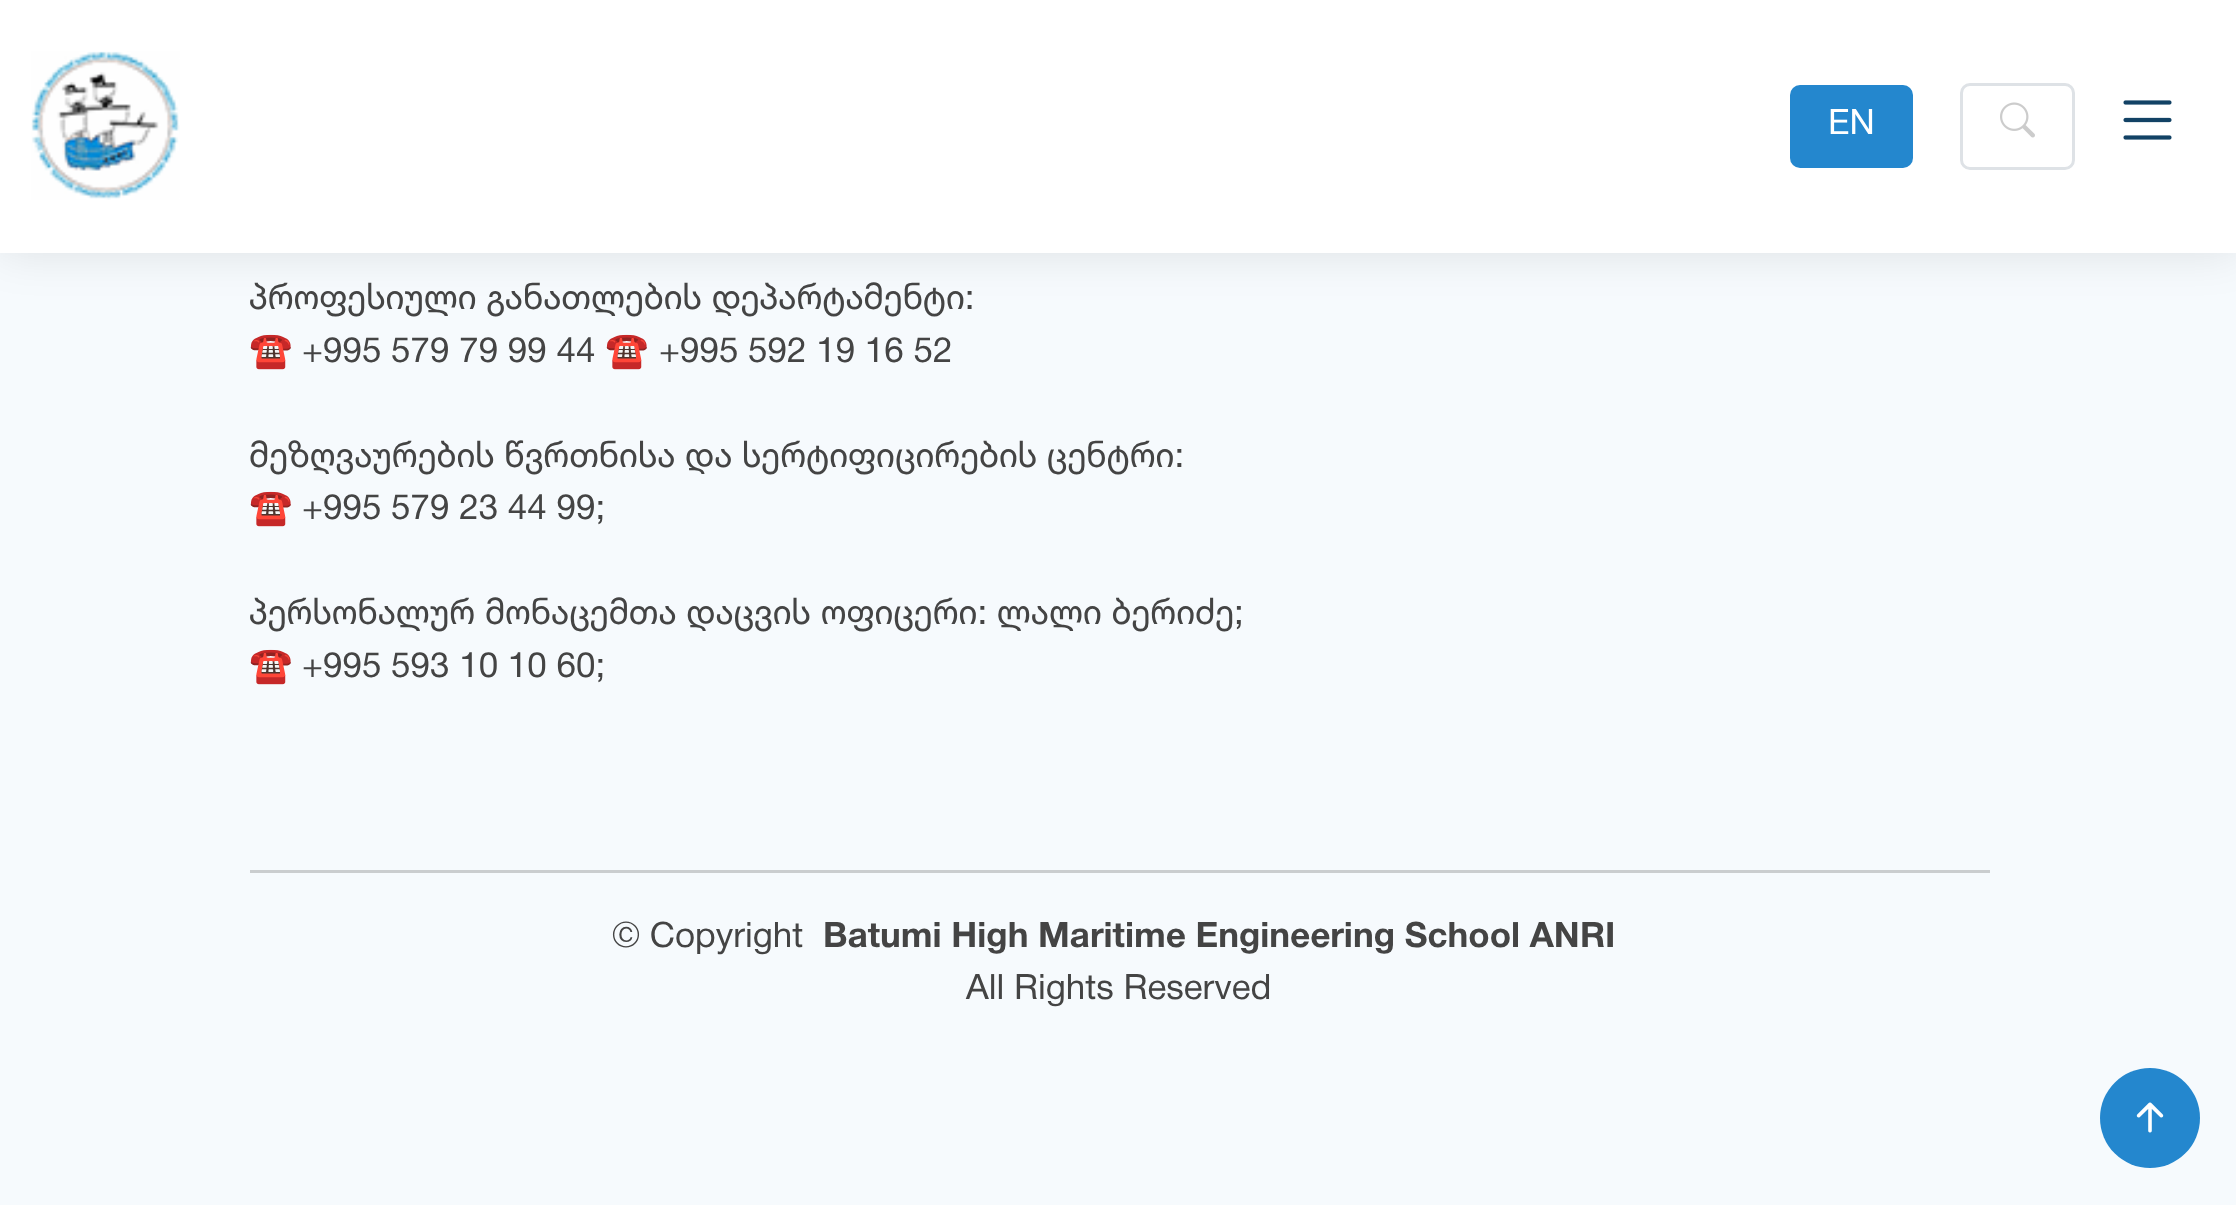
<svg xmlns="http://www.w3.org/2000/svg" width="2236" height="1205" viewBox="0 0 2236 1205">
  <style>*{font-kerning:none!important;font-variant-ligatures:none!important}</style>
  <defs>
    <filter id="blur1" x="-50%" y="-200%" width="200%" height="500%"><feGaussianBlur stdDeviation="22.5"/></filter>
  </defs>
  <rect width="100%" height="100%" fill="#f6fafd"/>
  <rect x="0" y="0" width="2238" height="253" fill="#000000" fill-opacity="0.1" filter="url(#blur1)"/>
  <rect x="0" y="0" width="2236" height="253" fill="#ffffff"/>
  <image x="31" y="51" width="149" height="149" href="img1.png"/>
  <rect x="1790" y="85" width="123" height="83" rx="10" fill="#2487ce"/>
  <text x="1828" y="134" font-family="Helvetica Neue" font-size="35" fill="#ffffff">EN</text>
  <rect x="1961.5" y="84.5" width="112" height="84" rx="8.5" fill="none" stroke="#dee2e6" stroke-width="3"/>
  <image x="2000" y="102" width="35" height="36" href="img2.png"/>
  <image x="2123" y="100" width="49" height="40" href="img3.png"/>
  <text x="249" y="309" font-family="Helvetica Neue" font-size="35" fill="#444444">პროფესიული განათლების დეპარტამენტი:</text>
  <text x="249" y="362" font-family="Noto Color Emoji" font-size="35" fill="#444444">☎</text>
  <text x="302" y="362" font-family="Helvetica Neue" font-size="35" fill="#444444">+995 579 79 99 44</text>
  <text x="605" y="362" font-family="Noto Color Emoji" font-size="35" fill="#444444">☎</text>
  <text x="659" y="362" font-family="Helvetica Neue" font-size="35" fill="#444444">+995 592 19 16 52</text>
  <text x="249" y="467" font-family="Helvetica Neue" font-size="35" fill="#444444">მეზღვაურების წვრთნისა და სერტიფიცირების ცენტრი:</text>
  <text x="249" y="519" font-family="Noto Color Emoji" font-size="35" fill="#444444">☎</text>
  <text x="302" y="519" font-family="Helvetica Neue" font-size="35" fill="#444444">+995 579 23 44 99;</text>
  <text x="249" y="624" font-family="Helvetica Neue" font-size="35" fill="#444444">პერსონალურ მონაცემთა დაცვის ოფიცერი: ლალი ბერიძე;</text>
  <text x="249" y="677" font-family="Noto Color Emoji" font-size="35" fill="#444444">☎</text>
  <text x="302" y="677" font-family="Helvetica Neue" font-size="35" fill="#444444">+995 593 10 10 60;</text>
  <rect x="250" y="870" width="1740" height="3" fill="#cacdcf"/>
  <text x="612" y="947" font-family="Helvetica Neue" font-size="35" fill="#444444">© Copyright</text>
  <text x="823" y="947" font-family="Helvetica Neue" font-size="35" font-weight="bold" fill="#444444">Batumi High Maritime Engineering School ANRI</text>
  <text x="966" y="999" font-family="Helvetica Neue" font-size="35" fill="#444444">All Rights Reserved</text>
  <circle cx="2150" cy="1118" r="50" fill="#2487ce"/>
  <image x="2136" y="1102" width="28" height="31" href="img4.png"/>
</svg>
